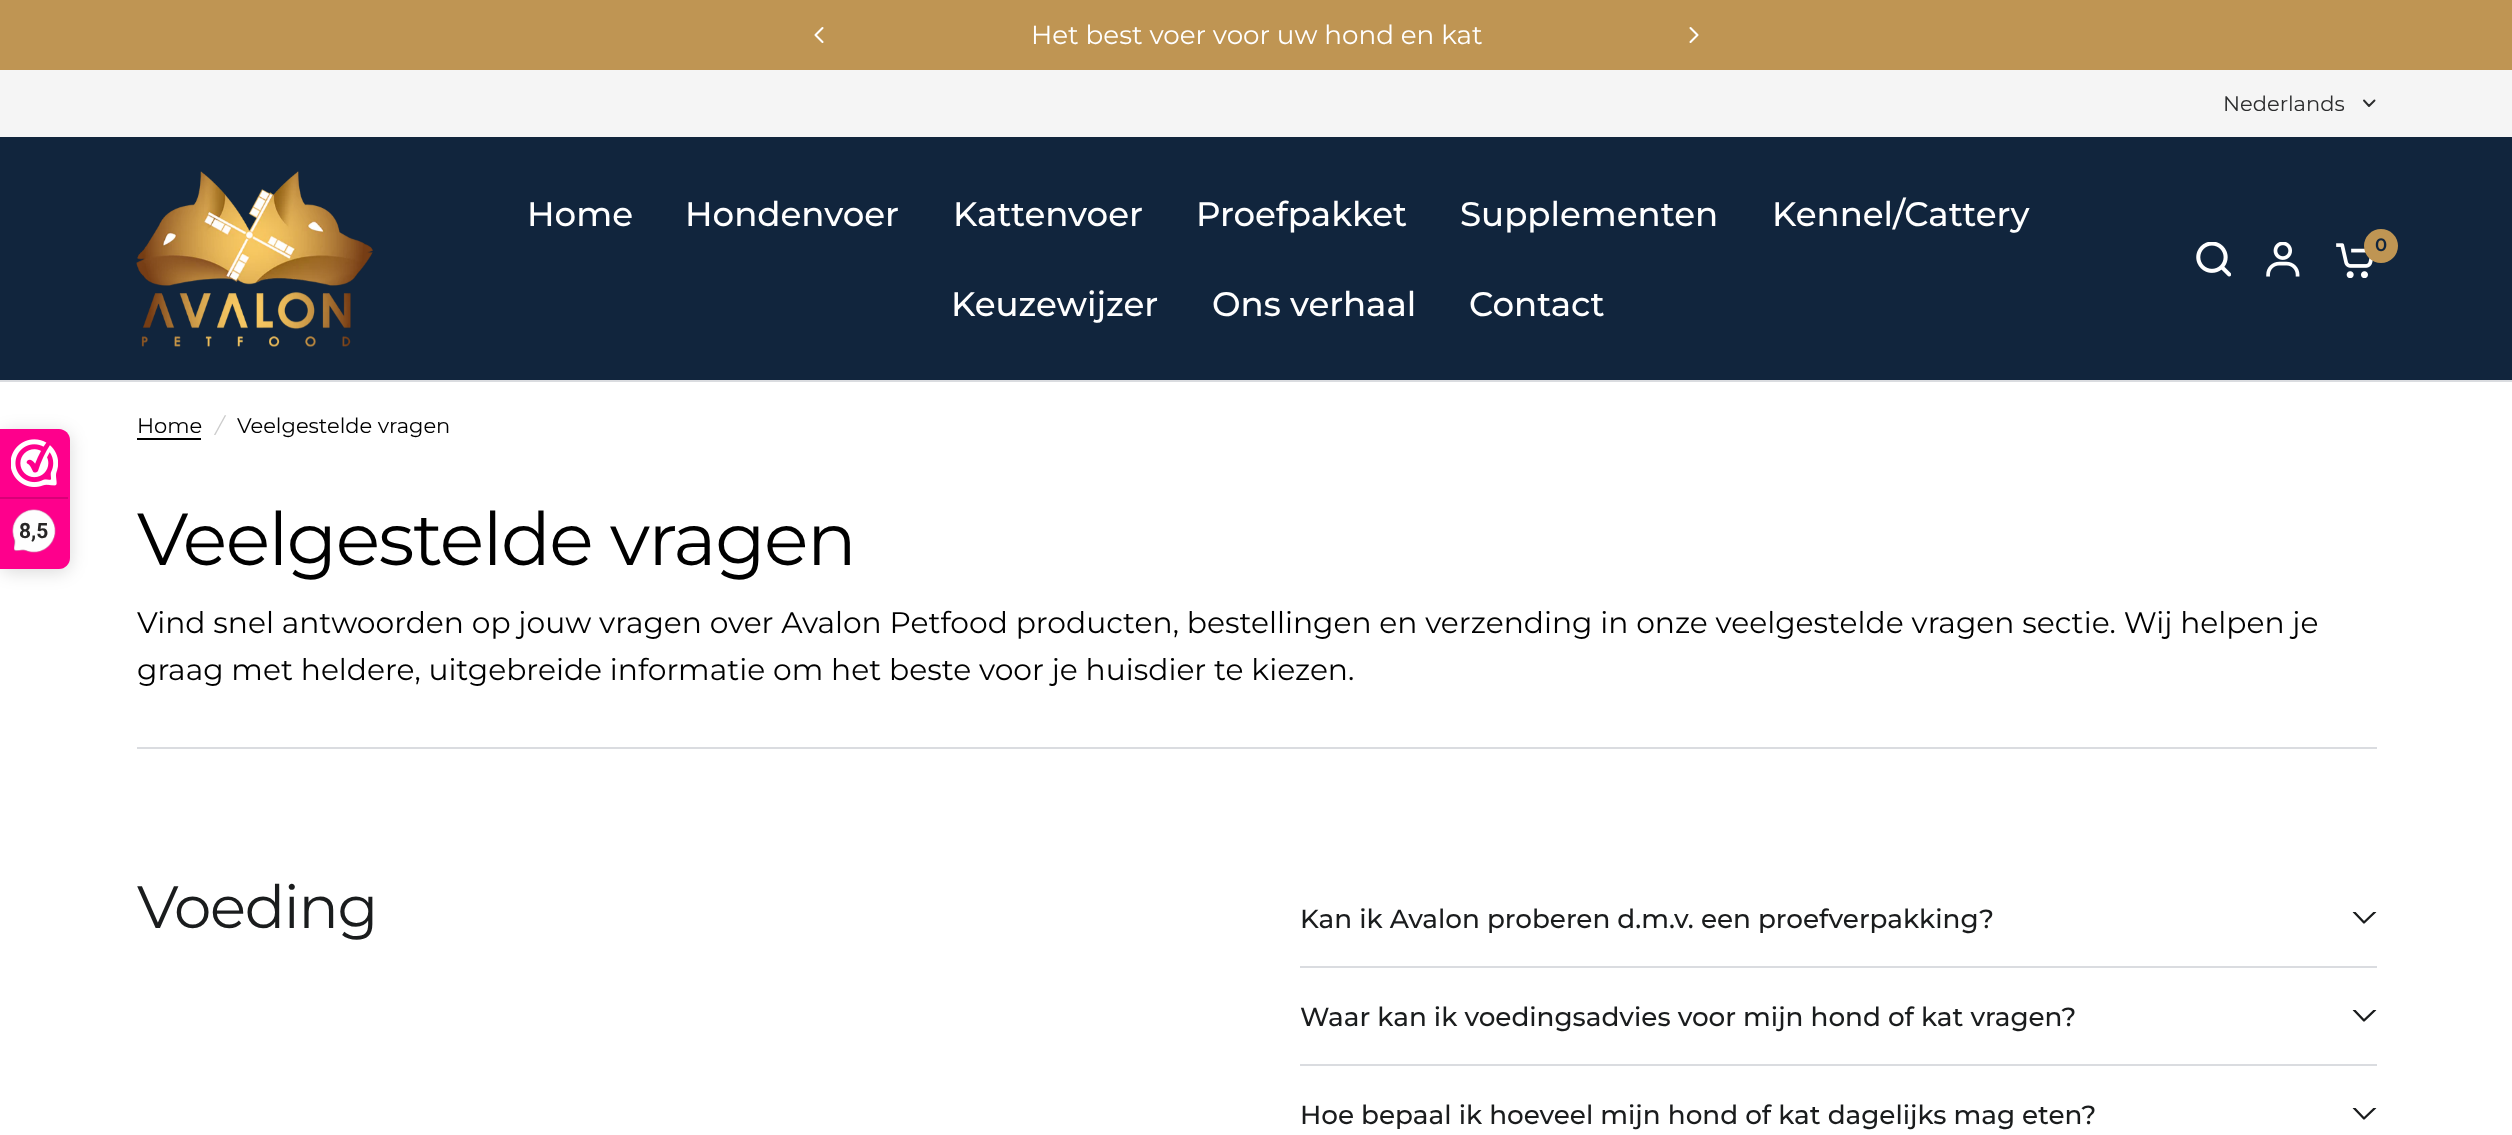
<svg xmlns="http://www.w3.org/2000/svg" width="2512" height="1135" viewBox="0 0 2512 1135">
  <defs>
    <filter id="blur1" x="-50%" y="-200%" width="200%" height="500%"><feGaussianBlur stdDeviation="9"/></filter>
    <clipPath id="clip1"><rect x="2352" y="912" width="25" height="14"/></clipPath>
    <clipPath id="clip2"><rect x="2352" y="1010" width="25" height="14"/></clipPath>
    <clipPath id="clip3"><rect x="2352" y="1108" width="25" height="14"/></clipPath>
  </defs>
  <rect width="100%" height="100%" fill="#11253d"/>
  <rect x="0" y="382" width="2512" height="753" fill="#ffffff"/>
  <rect x="0" y="432" width="70" height="140" rx="11" fill="#000000" fill-opacity="0.15" filter="url(#blur1)"/>
  <path d="M0 429H59C65 429 70 434 70 440V558C70 564 65 569 59 569H0Z" fill="#fe008c"/>
  <image x="11" y="439" width="47" height="48" href="img1.png"/>
  <rect x="0" y="497" width="68" height="2" fill="#d80077"/>
  <image x="12" y="509" width="44" height="44" href="img2.png"/>
  <text x="19" y="538" font-family="Roboto" font-size="21" font-weight="bold" fill="#272626">8,5</text>
  <rect x="0" y="0" width="2512" height="70" fill="#bf9553"/>
  <path d="M822.5 28L815.5 35L822.5 42" fill="none" stroke="#ffffff" stroke-width="2.1" stroke-linecap="round" stroke-linejoin="round"/>
  <text x="1031" y="44" font-family="Montserrat" font-size="26.2" fill="#ffffff">Het best voer voor uw hond en kat</text>
  <path d="M1690.5 28L1697.5 35L1690.5 42" fill="none" stroke="#ffffff" stroke-width="2.1" stroke-linecap="round" stroke-linejoin="round"/>
  <rect x="0" y="70" width="2512" height="67" fill="#f5f5f5"/>
  <text x="2223" y="111" font-family="Montserrat" font-size="21" fill="#2c2d2e">Nederlands</text>
  <path d="M2374.5 100.5L2369 106L2364 100.5" fill="none" stroke="#2c2d2e" stroke-width="1.9" stroke-linecap="round" stroke-linejoin="round"/>
  <image x="136" y="171" width="237" height="176" href="img3.png"/>
  <text x="527" y="226" font-family="Montserrat" font-size="34" font-weight="500" fill="#ffffff">Home</text>
  <text x="685" y="226" font-family="Montserrat" font-size="34" font-weight="500" fill="#ffffff">Hondenvoer</text>
  <text x="953" y="226" font-family="Montserrat" font-size="34" font-weight="500" fill="#ffffff">Kattenvoer</text>
  <text x="1196" y="226" font-family="Montserrat" font-size="34" font-weight="500" fill="#ffffff">Proefpakket</text>
  <text x="1460" y="226" font-family="Montserrat" font-size="34" font-weight="500" fill="#ffffff">Supplementen</text>
  <text x="1772" y="226" font-family="Montserrat" font-size="34" font-weight="500" fill="#ffffff">Kennel/Cattery</text>
  <text x="951" y="316" font-family="Montserrat" font-size="34" font-weight="500" fill="#ffffff">Keuzewijzer</text>
  <text x="1212" y="316" font-family="Montserrat" font-size="34" font-weight="500" fill="#ffffff">Ons verhaal</text>
  <text x="1469" y="316" font-family="Montserrat" font-size="34" font-weight="500" fill="#ffffff">Contact</text>
  <image x="2196" y="242" width="35" height="35" href="img4.png"/>
  <image x="2266" y="242" width="34" height="35" href="img5.png"/>
  <image x="2336" y="243" width="37" height="35" href="img6.png"/>
  <circle cx="2381" cy="246" r="17" fill="#bf9553"/>
  <text x="2375" y="251" font-family="Montserrat" font-size="18" font-weight="600" fill="#11253d">0</text>
  <rect x="0" y="380" width="2512" height="2" fill="#dadce0"/>
  <text x="137" y="433" font-family="Montserrat" font-size="21" fill="#000000">Home</text>
  <rect x="137" y="438" width="64" height="2" fill="#000000"/>
  <text x="216" y="433" font-family="Montserrat" font-size="21" font-style="italic" fill="#cccccc">/</text>
  <text x="237" y="433" font-family="Montserrat" font-size="21" fill="#000000">Veelgestelde vragen</text>
  <text x="137" y="565" font-family="Montserrat" font-size="73.5" letter-spacing="-1.5" fill="#000000">Veelgestelde vragen</text>
  <text x="137" y="633" font-family="Montserrat" font-size="29.75" fill="#000000">Vind snel antwoorden op jouw vragen over Avalon Petfood producten, bestellingen en verzending in onze veelgestelde vragen sectie. Wij helpen je</text>
  <text x="137" y="680" font-family="Montserrat" font-size="29.75" fill="#000000">graag met heldere, uitgebreide informatie om het beste voor je huisdier te kiezen.</text>
  <rect x="137" y="747" width="2240" height="2" fill="#dadce0"/>
  <text x="137" y="928" font-family="Montserrat" font-size="59.5" letter-spacing="-1.25" fill="#1a1c1d">Voeding</text>
  <rect x="1300" y="966" width="1077" height="2" fill="#dadce0"/>
  <text x="1300" y="928" font-family="Montserrat" font-size="26.25" font-weight="500" fill="#1a1c1d">Kan ik Avalon proberen d.m.v. een proefverpakking?</text>
  <g clip-path="url(#clip1)">
    <path d="M2375 912L2364 922.5L2354 912" fill="none" stroke="#1a1c1d" stroke-width="2.3" stroke-linecap="round" stroke-linejoin="round"/>
  </g>
  <rect x="1300" y="1064" width="1077" height="2" fill="#dadce0"/>
  <text x="1300" y="1026" font-family="Montserrat" font-size="26.25" font-weight="500" fill="#1a1c1d">Waar kan ik voedingsadvies voor mijn hond of kat vragen?</text>
  <g clip-path="url(#clip2)">
    <path d="M2375 1010L2364 1020.5L2354 1010" fill="none" stroke="#1a1c1d" stroke-width="2.3" stroke-linecap="round" stroke-linejoin="round"/>
  </g>
  <text x="1300" y="1124" font-family="Montserrat" font-size="26.25" font-weight="500" fill="#1a1c1d">Hoe bepaal ik hoeveel mijn hond of kat dagelijks mag eten?</text>
  <g clip-path="url(#clip3)">
    <path d="M2375 1108L2364 1118.5L2354 1108" fill="none" stroke="#1a1c1d" stroke-width="2.3" stroke-linecap="round" stroke-linejoin="round"/>
  </g>
</svg>
